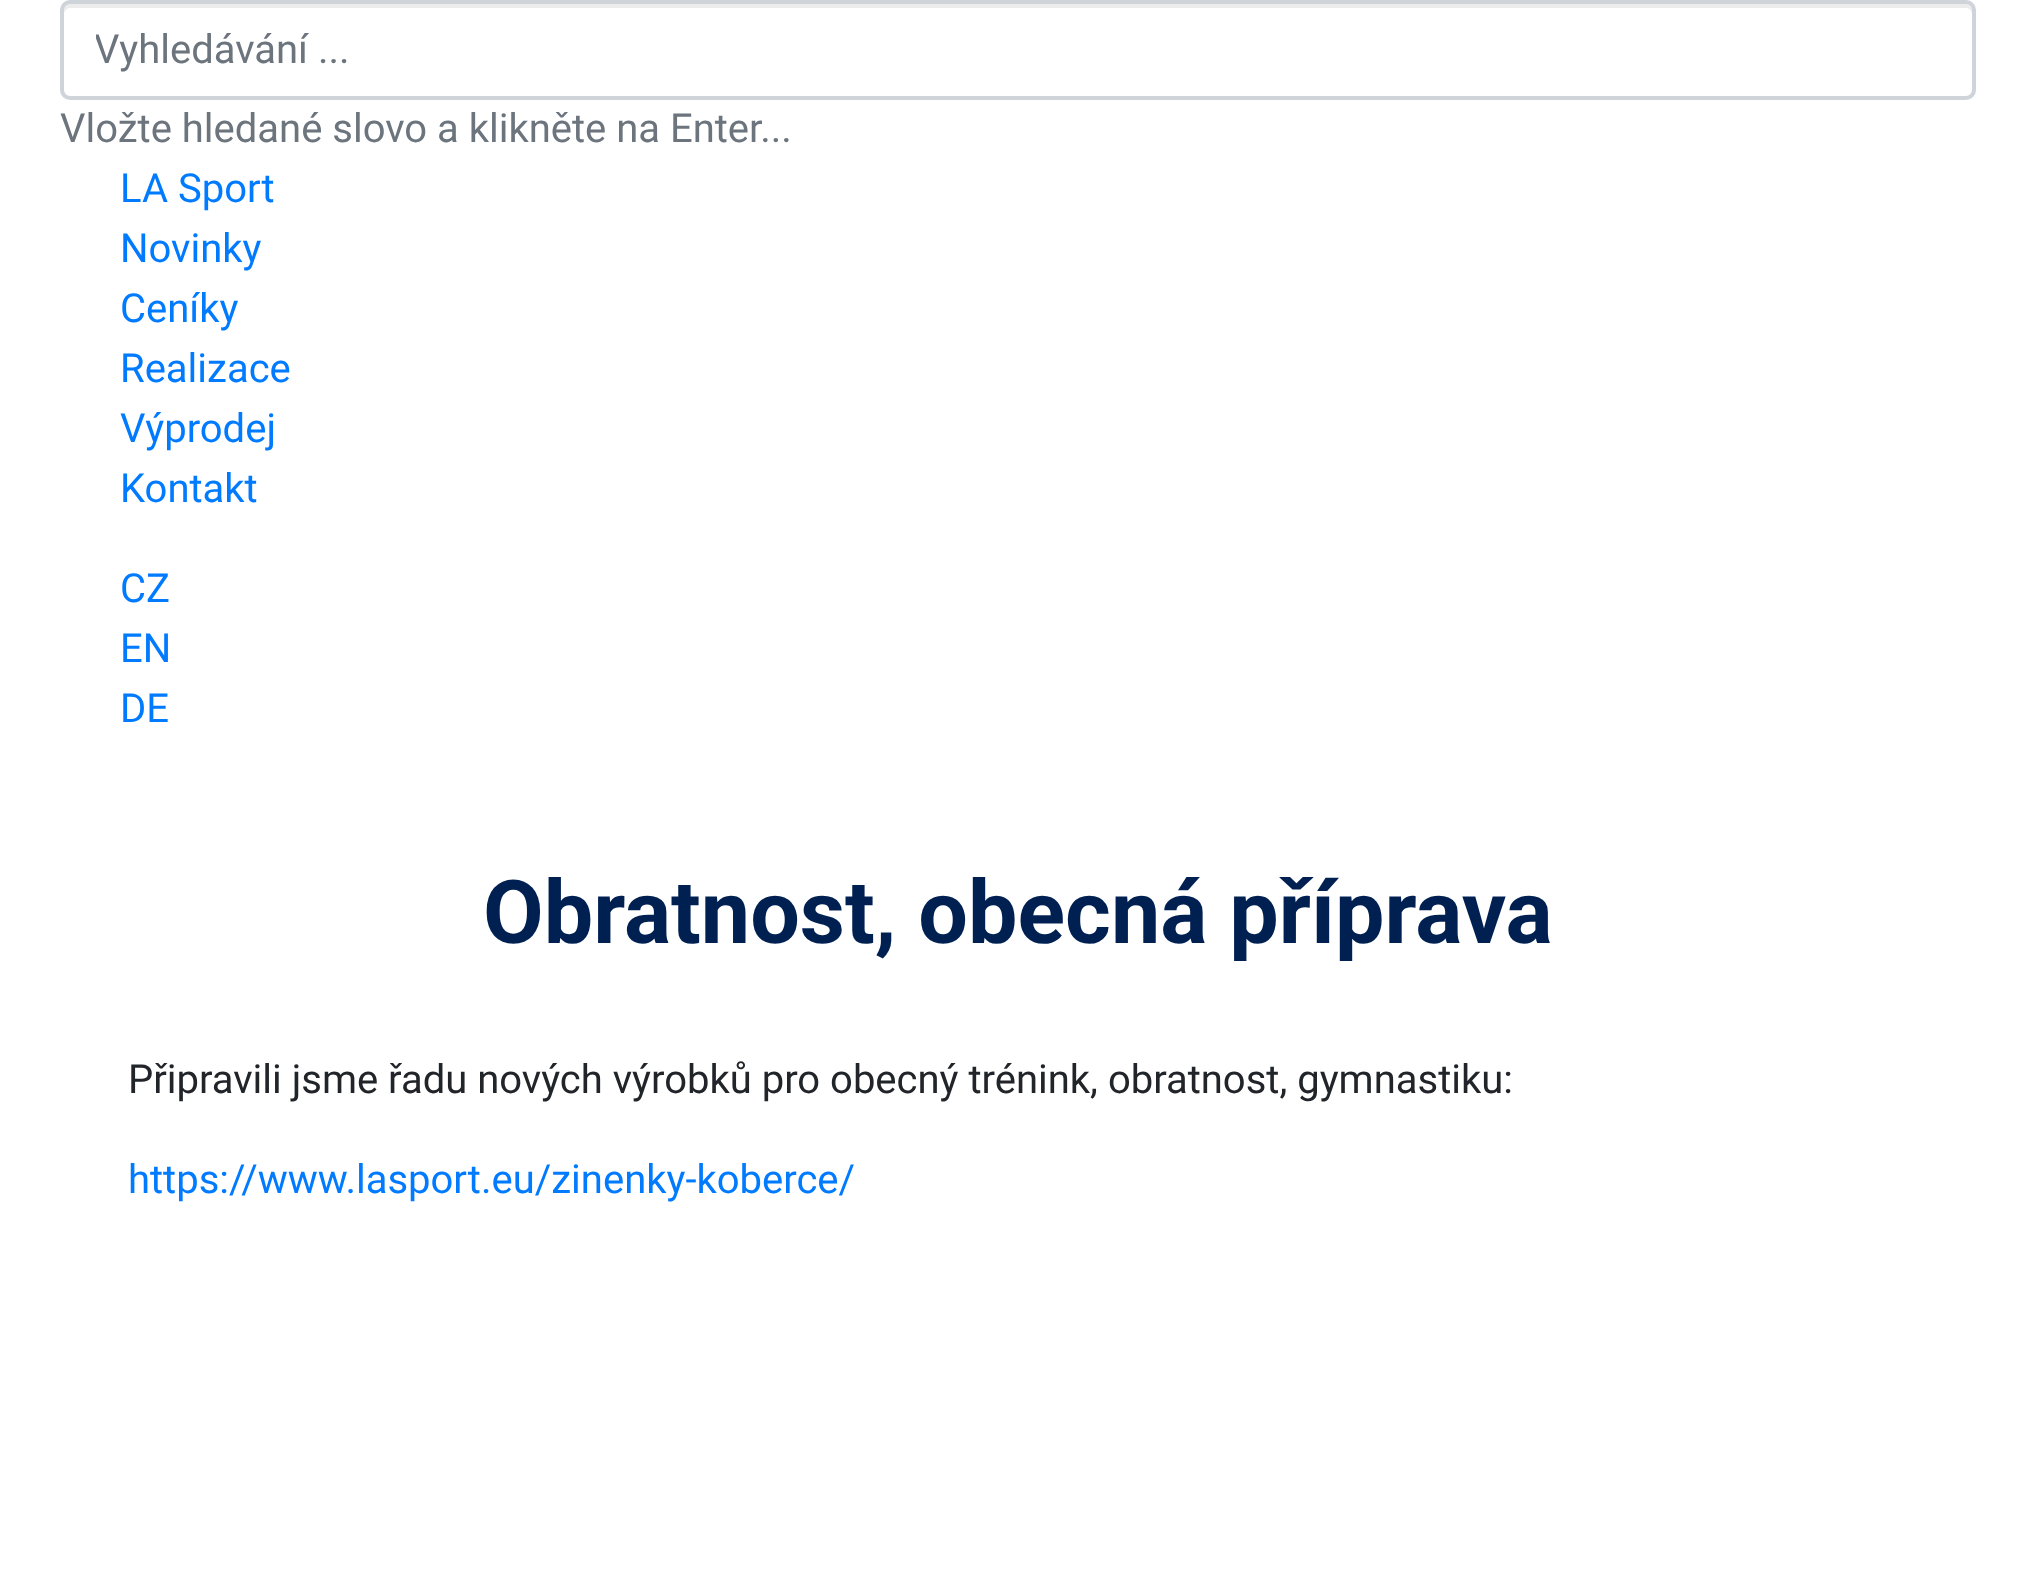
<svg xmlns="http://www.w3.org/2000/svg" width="2035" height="1581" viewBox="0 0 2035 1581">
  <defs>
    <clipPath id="clip1"><rect x="96" y="28" width="1848" height="44"/></clipPath>
  </defs>
  <rect width="100%" height="100%" fill="#ffffff"/>
  <path d="M70 8H1966C1969 8 1972 11 1972 14V10C1972 7 1969 4 1966 4H70C67 4 64 7 64 10V14C64 11 67 8 70 8Z" fill="#ececec"/>
  <rect x="62" y="2" width="1912" height="96" rx="8" fill="none" stroke="#ced4da" stroke-width="4"/>
  <g clip-path="url(#clip1)">
    <text x="94" y="63" font-family="Roboto" font-size="40" fill="#6c757d">Vyhledávání ...</text>
  </g>
  <text x="60" y="142" font-family="Roboto" font-size="40" fill="#6c757d">Vložte hledané slovo a klikněte na Enter...</text>
  <text x="120" y="202" font-family="Roboto" font-size="40" fill="#007bff">LA Sport</text>
  <text x="120" y="262" font-family="Roboto" font-size="40" fill="#007bff">Novinky</text>
  <text x="120" y="322" font-family="Roboto" font-size="40" fill="#007bff">Ceníky</text>
  <text x="120" y="382" font-family="Roboto" font-size="40" fill="#007bff">Realizace</text>
  <text x="120" y="442" font-family="Roboto" font-size="40" fill="#007bff">Výprodej</text>
  <text x="120" y="502" font-family="Roboto" font-size="40" fill="#007bff">Kontakt</text>
  <text x="120" y="602" font-family="Roboto" font-size="40" fill="#007bff">CZ</text>
  <text x="120" y="662" font-family="Roboto" font-size="40" fill="#007bff">EN</text>
  <text x="120" y="722" font-family="Roboto" font-size="40" fill="#007bff">DE</text>
  <text x="483" y="943" font-family="Roboto" font-size="88" font-weight="bold" fill="#002052">Obratnost, obecná příprava</text>
  <text x="128" y="1093" font-family="Roboto" font-size="40" fill="#212529">Připravili jsme řadu nových výrobků pro obecný trénink, obratnost, gymnastiku:</text>
  <text x="128" y="1193" font-family="Roboto" font-size="40" fill="#007bff">https://www.lasport.eu/zinenky-koberce/</text>
</svg>
